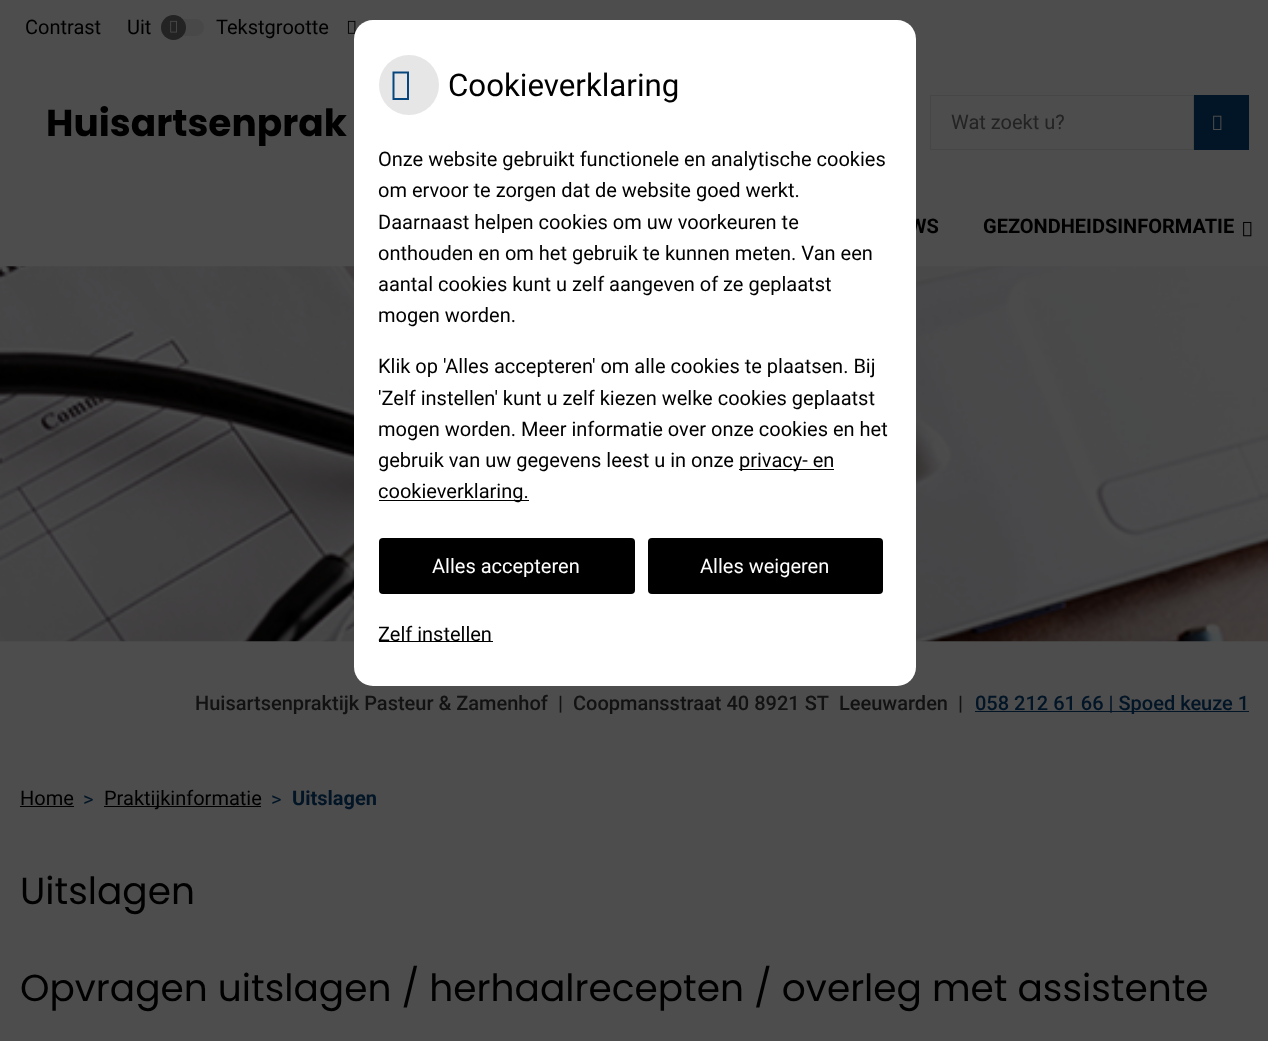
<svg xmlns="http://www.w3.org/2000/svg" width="1268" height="1041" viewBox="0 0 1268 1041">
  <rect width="100%" height="100%" fill="#4d4d4d"/>
  <text x="25" y="34" font-family="Roboto" font-size="20" fill="#000000">Contrast</text>
  <text x="127" y="34" font-family="Roboto" font-size="20" fill="#000000">Uit</text>
  <rect x="161" y="19" width="43" height="17" rx="8.5" fill="#494848"/>
  <circle cx="173.5" cy="27.5" r="12.5" fill="#232323"/>
  <image x="170" y="20" width="7" height="13" href="img1.png"/>
  <text x="216" y="34" font-family="Roboto" font-size="20" fill="#000000">Tekstgrootte</text>
  <image x="347" y="20" width="9" height="14" href="img2.png"/>
  <text x="909" y="233" font-family="Roboto" font-size="20" font-weight="bold" fill="#000000">WS</text>
  <image x="0" y="266" width="1268" height="376" href="img5.png"/>
  <rect x="354" y="20" width="562" height="666" rx="19" fill="#ffffff"/>
  <circle cx="409" cy="85" r="30" fill="#e6e6e6"/>
  <path d="M392.5 100V71.5H409V100ZM394.5 98H407V73.5H394.5Z" fill="#06467e"/>
  <text x="448" y="96" font-family="Roboto" font-size="31.25" fill="#000000">Cookieverklaring</text>
  <text x="378" y="166" font-family="Roboto" font-size="20" fill="#000000">Onze website gebruikt functionele en analytische cookies</text>
  <text x="378" y="197" font-family="Roboto" font-size="20" fill="#000000">om ervoor te zorgen dat de website goed werkt.</text>
  <text x="378" y="229" font-family="Roboto" font-size="20" fill="#000000">Daarnaast helpen cookies om uw voorkeuren te</text>
  <text x="378" y="260" font-family="Roboto" font-size="20" fill="#000000">onthouden en om het gebruik te kunnen meten. Van een</text>
  <text x="378" y="291" font-family="Roboto" font-size="20" fill="#000000">aantal cookies kunt u zelf aangeven of ze geplaatst</text>
  <text x="378" y="322" font-family="Roboto" font-size="20" fill="#000000">mogen worden.</text>
  <text x="378" y="373" font-family="Roboto" font-size="20" fill="#000000">Klik op 'Alles accepteren' om alle cookies te plaatsen. Bij</text>
  <text x="378" y="405" font-family="Roboto" font-size="20" fill="#000000">'Zelf instellen' kunt u zelf kiezen welke cookies geplaatst</text>
  <text x="378" y="436" font-family="Roboto" font-size="20" fill="#000000">mogen worden. Meer informatie over onze cookies en het</text>
  <text x="378" y="467" font-family="Roboto" font-size="20" fill="#000000">gebruik van uw gegevens leest u in onze</text>
  <rect x="739" y="469" width="95" height="1" fill="#000000"/>
  <text x="739" y="467" font-family="Roboto" font-size="20" fill="#000000">privacy- en</text>
  <rect x="379" y="500" width="150" height="1" fill="#000000"/>
  <text x="378" y="498" font-family="Roboto" font-size="20" fill="#000000">cookieverklaring.</text>
  <rect x="379" y="538" width="256" height="56" rx="4" fill="#000000"/>
  <text x="432" y="573" font-family="Roboto" font-size="20" fill="#ffffff">Alles accepteren</text>
  <rect x="648" y="538" width="235" height="56" rx="4" fill="#000000"/>
  <text x="700" y="573" font-family="Roboto" font-size="20" fill="#ffffff">Alles weigeren</text>
  <rect x="379" y="641" width="114" height="1" fill="#000000"/>
  <text x="378" y="641" font-family="Roboto" font-size="20" fill="#000000">Zelf instellen</text>
  <text x="46" y="136" font-family="Poppins" font-size="37.5" font-weight="bold" fill="#000000">Huisartsenprak</text>
  <rect x="930.5" y="95.5" width="263" height="54" fill="none" stroke="#454646"/>
  <text x="951" y="129" font-family="Roboto" font-size="20" fill="#232323">Wat zoekt u?</text>
  <rect x="1194" y="95" width="55" height="55" fill="#021526"/>
  <image x="1213" y="115" width="9" height="15" href="img3.png"/>
  <text x="983" y="233" font-family="Roboto" font-size="20" font-weight="bold" fill="#000000">GEZONDHEIDSINFORMATIE</text>
  <image x="1243" y="221" width="9" height="16" href="img4.png"/>
  <text x="195" y="710" font-family="Roboto" font-size="20" font-weight="500" fill="#121212">Huisartsenpraktijk Pasteur &amp; Zamenhof</text>
  <text x="558" y="710" font-family="Roboto" font-size="20" font-weight="500" fill="#121212">|</text>
  <text x="573" y="710" font-family="Roboto" font-size="20" font-weight="500" fill="#121212">Coopmansstraat 40 8921 ST</text>
  <text x="839" y="710" font-family="Roboto" font-size="20" font-weight="500" fill="#121212">Leeuwarden</text>
  <text x="958" y="710" font-family="Roboto" font-size="20" font-weight="500" fill="#121212">|</text>
  <rect x="975" y="711" width="274" height="1" fill="#021526"/>
  <text x="975" y="710" font-family="Roboto" font-size="20" font-weight="500" fill="#021526">058 212 61 66 | Spoed keuze 1</text>
  <text x="20" y="805" font-family="Roboto" font-size="20" fill="#000000">Home</text>
  <rect x="20" y="806" width="54" height="1" fill="#000000"/>
  <text x="83" y="806" font-family="Roboto" font-size="20" fill="#021526">&gt;</text>
  <rect x="104" y="806" width="157" height="1" fill="#000000"/>
  <text x="104" y="805" font-family="Roboto" font-size="20" fill="#000000">Praktijkinformatie</text>
  <text x="271" y="806" font-family="Roboto" font-size="20" fill="#021526">&gt;</text>
  <text x="292" y="805" font-family="Roboto" font-size="20" font-weight="bold" fill="#021526">Uitslagen</text>
  <text x="20" y="904" font-family="Poppins" font-size="37.5" fill="#000000">Uitslagen</text>
  <text x="20" y="1001" font-family="Poppins" font-size="37.5" fill="#000000">Opvragen uitslagen / herhaalrecepten / overleg met assistente</text>
</svg>
